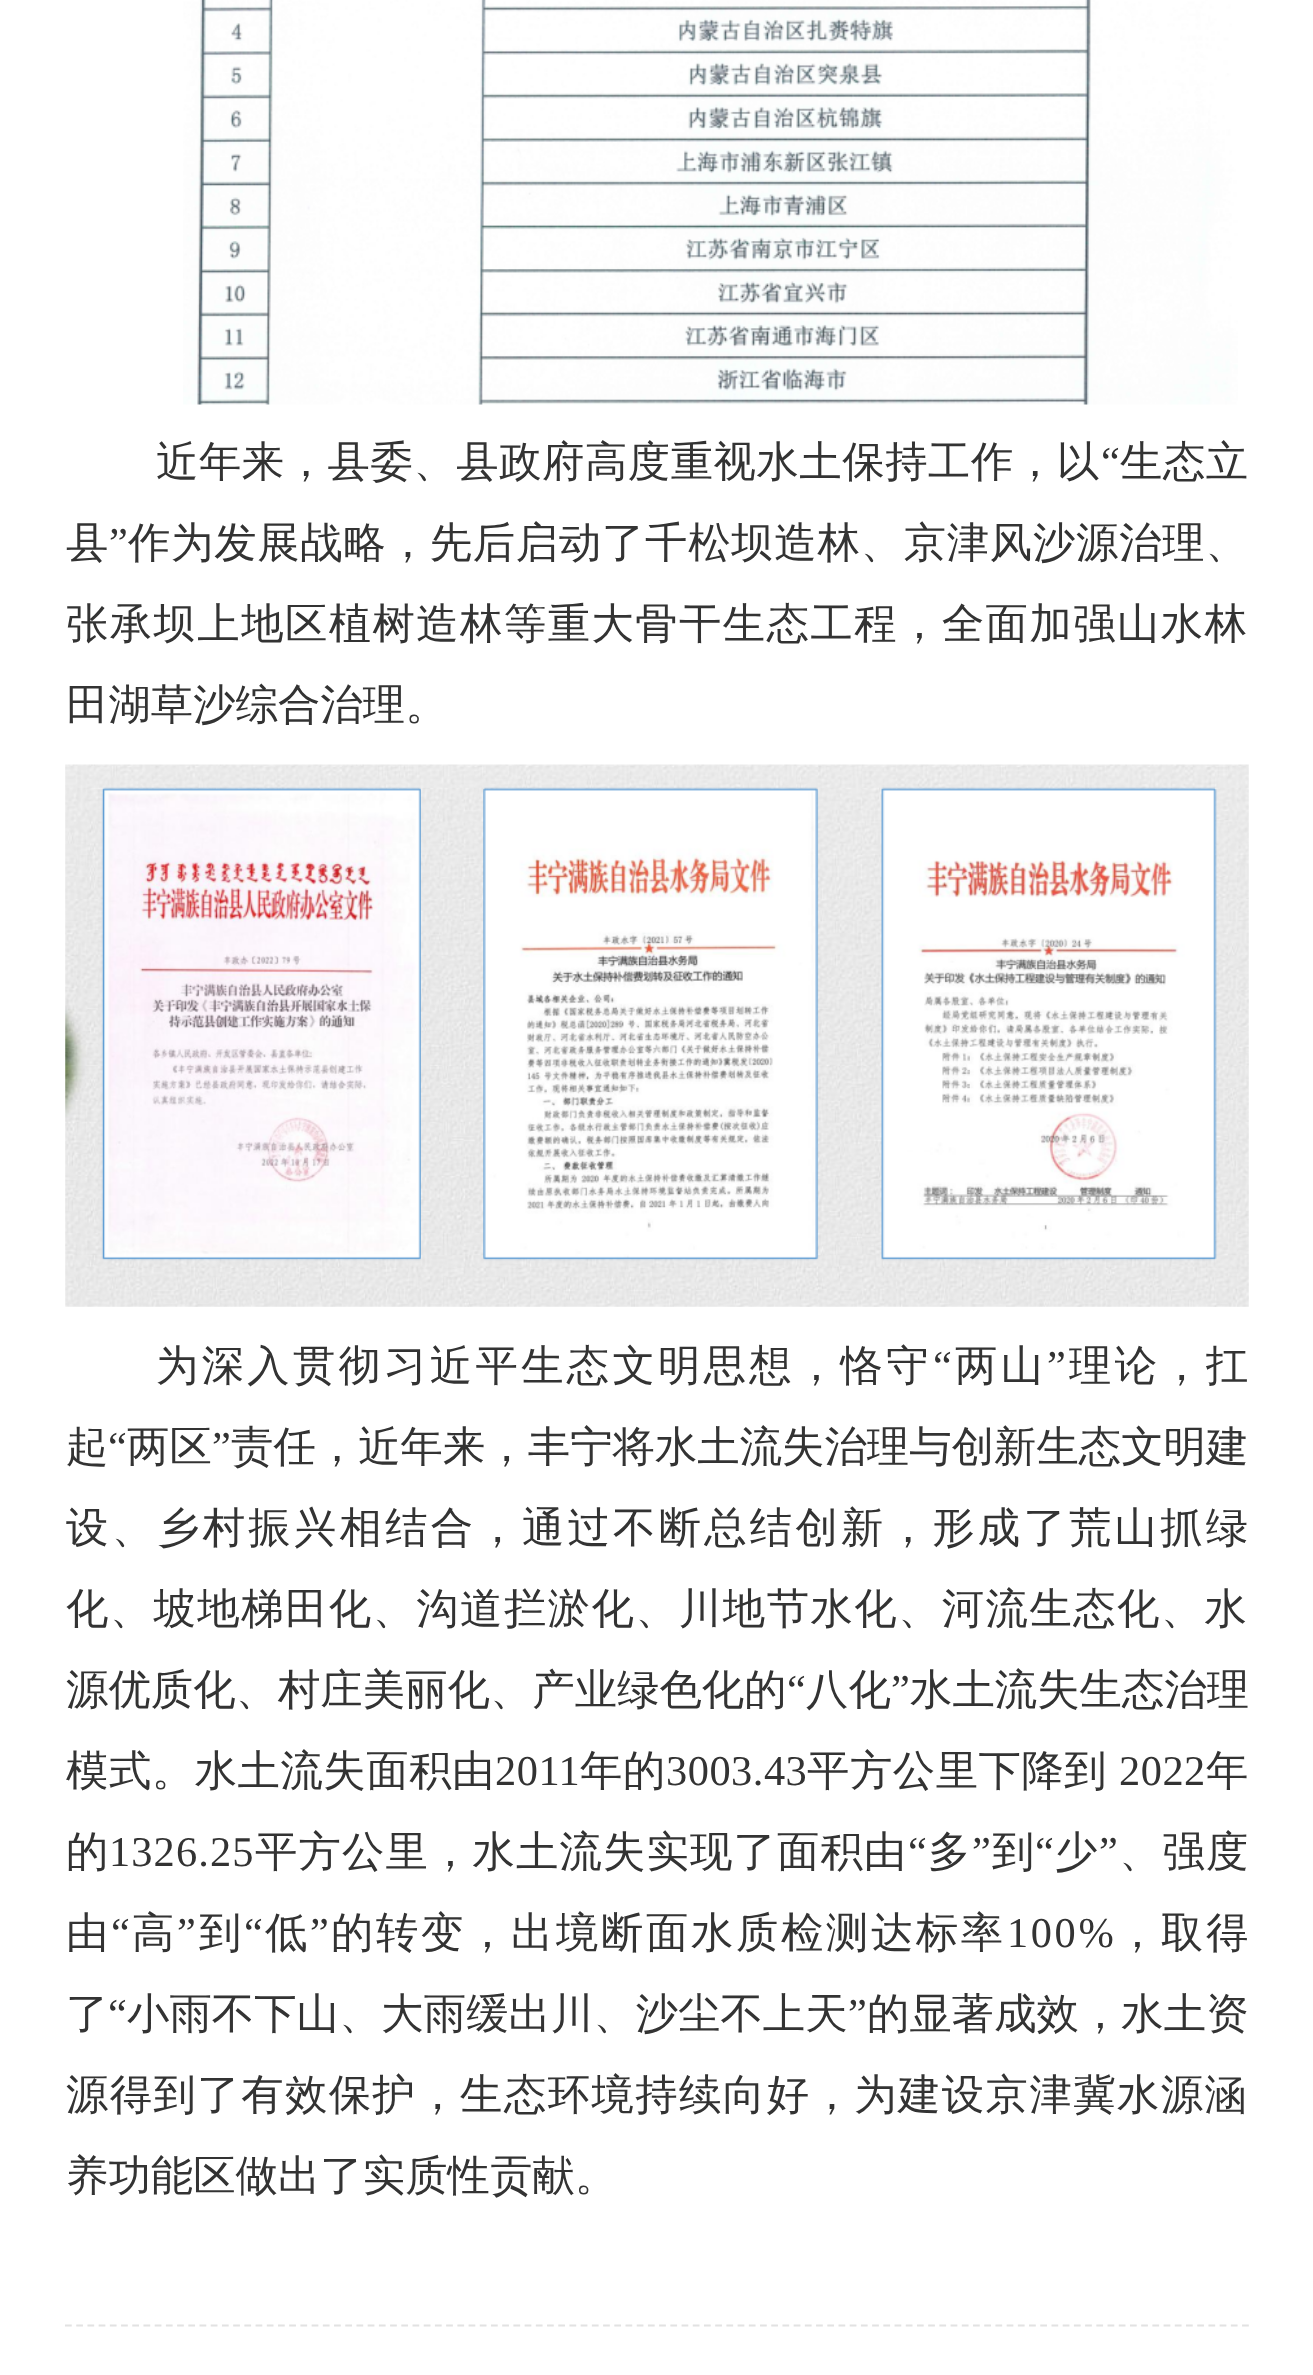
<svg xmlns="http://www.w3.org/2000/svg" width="1313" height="2375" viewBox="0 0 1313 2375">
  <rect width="100%" height="100%" fill="#ffffff"/>
  <image x="183" y="0" width="1055" height="405" href="img1.png"/>
  <text x="156" y="476" font-family="WenQuanYi Zen Hei" font-size="42.4" font-weight="500" letter-spacing="0.5" fill="#333333">近年来，县委、县政府高度重视水土保持工作，以</text>
  <text x="1101" y="476" font-family="Liberation Serif" font-size="42.4" letter-spacing="0.5" fill="#333333">“</text>
  <text x="1120" y="476" font-family="WenQuanYi Zen Hei" font-size="42.4" font-weight="500" letter-spacing="0.5" fill="#333333">生态立</text>
  <text x="66" y="557" font-family="WenQuanYi Zen Hei" font-size="42.4" font-weight="500" letter-spacing="0.7" fill="#333333">县</text>
  <text x="109" y="557" font-family="Liberation Serif" font-size="42.4" letter-spacing="0.7" fill="#333333">”</text>
  <text x="128" y="557" font-family="WenQuanYi Zen Hei" font-size="42.4" font-weight="500" letter-spacing="0.7" fill="#333333">作为发展战略，先后启动了千松坝造林、京津风沙源治理、</text>
  <text x="66" y="638" font-family="WenQuanYi Zen Hei" font-size="42.4" font-weight="500" letter-spacing="1.4" fill="#333333">张承坝上地区植树造林等重大骨干生态工程，全面加强山水林</text>
  <text x="66" y="719" font-family="WenQuanYi Zen Hei" font-size="42.4" font-weight="500" fill="#333333">田湖草沙综合治理。</text>
  <image x="65" y="764" width="1184" height="543" href="img2.png"/>
  <text x="156" y="1380" font-family="WenQuanYi Zen Hei" font-size="42.4" font-weight="500" letter-spacing="3.25" fill="#333333">为深入贯彻习近平生态文明思想，恪守</text>
  <text x="933" y="1380" font-family="Liberation Serif" font-size="42.4" letter-spacing="3.25" fill="#333333">“</text>
  <text x="955" y="1380" font-family="WenQuanYi Zen Hei" font-size="42.4" font-weight="500" letter-spacing="3.25" fill="#333333">两山</text>
  <text x="1047" y="1380" font-family="Liberation Serif" font-size="42.4" letter-spacing="3.25" fill="#333333">”</text>
  <text x="1069" y="1380" font-family="WenQuanYi Zen Hei" font-size="42.4" font-weight="500" letter-spacing="3.25" fill="#333333">理论，扛</text>
  <text x="66" y="1461" font-family="WenQuanYi Zen Hei" font-size="42.4" font-weight="500" fill="#333333">起</text>
  <text x="108" y="1461" font-family="Liberation Serif" font-size="42.4" fill="#333333">“</text>
  <text x="127" y="1461" font-family="WenQuanYi Zen Hei" font-size="42.4" font-weight="500" fill="#333333">两区</text>
  <text x="212" y="1461" font-family="Liberation Serif" font-size="42.4" fill="#333333">”</text>
  <text x="231" y="1461" font-family="WenQuanYi Zen Hei" font-size="42.4" font-weight="500" fill="#333333">责任，近年来，丰宁将水土流失治理与创新生态文明建</text>
  <text x="66" y="1542" font-family="WenQuanYi Zen Hei" font-size="42.4" font-weight="500" letter-spacing="3.2" fill="#333333">设、乡村振兴相结合，通过不断总结创新，形成了荒山抓绿</text>
  <text x="66" y="1623" font-family="WenQuanYi Zen Hei" font-size="42.4" font-weight="500" letter-spacing="1.4" fill="#333333">化、坡地梯田化、沟道拦淤化、川地节水化、河流生态化、水</text>
  <text x="66" y="1704" font-family="WenQuanYi Zen Hei" font-size="42.4" font-weight="500" fill="#333333">源优质化、村庄美丽化、产业绿色化的</text>
  <text x="787" y="1704" font-family="Liberation Serif" font-size="42.4" fill="#333333">“</text>
  <text x="806" y="1704" font-family="WenQuanYi Zen Hei" font-size="42.4" font-weight="500" fill="#333333">八化</text>
  <text x="891" y="1704" font-family="Liberation Serif" font-size="42.4" fill="#333333">”</text>
  <text x="910" y="1704" font-family="WenQuanYi Zen Hei" font-size="42.4" font-weight="500" fill="#333333">水土流失生态治理</text>
  <text x="66" y="1785" font-family="WenQuanYi Zen Hei" font-size="42.4" font-weight="500" letter-spacing="0.5" fill="#333333">模式。水土流失面积由</text>
  <text x="495" y="1785" font-family="Liberation Serif" font-size="42.4" letter-spacing="0.5" fill="#333333">2011</text>
  <text x="580" y="1785" font-family="WenQuanYi Zen Hei" font-size="42.4" font-weight="500" letter-spacing="0.5" fill="#333333">年的</text>
  <text x="666" y="1785" font-family="Liberation Serif" font-size="42.4" letter-spacing="0.5" fill="#333333">3003.43</text>
  <text x="807" y="1785" font-family="WenQuanYi Zen Hei" font-size="42.4" font-weight="500" letter-spacing="0.5" fill="#333333">平方公里下降到</text>
  <text x="1119" y="1785" font-family="Liberation Serif" font-size="42.4" letter-spacing="0.5" fill="#333333">2022</text>
  <text x="1206" y="1785" font-family="WenQuanYi Zen Hei" font-size="42.4" font-weight="500" letter-spacing="0.5" fill="#333333">年</text>
  <text x="66" y="1866" font-family="WenQuanYi Zen Hei" font-size="42.4" font-weight="500" letter-spacing="1.1" fill="#333333">的</text>
  <text x="109" y="1866" font-family="Liberation Serif" font-size="42.4" letter-spacing="1.1" fill="#333333">1326.25</text>
  <text x="255" y="1866" font-family="WenQuanYi Zen Hei" font-size="42.4" font-weight="500" letter-spacing="1.1" fill="#333333">平方公里，水土流失实现了面积由</text>
  <text x="908" y="1866" font-family="Liberation Serif" font-size="42.4" letter-spacing="1.1" fill="#333333">“</text>
  <text x="928" y="1866" font-family="WenQuanYi Zen Hei" font-size="42.4" font-weight="500" letter-spacing="1.1" fill="#333333">多</text>
  <text x="972" y="1866" font-family="Liberation Serif" font-size="42.4" letter-spacing="1.1" fill="#333333">”</text>
  <text x="992" y="1866" font-family="WenQuanYi Zen Hei" font-size="42.4" font-weight="500" letter-spacing="1.1" fill="#333333">到</text>
  <text x="1035" y="1866" font-family="Liberation Serif" font-size="42.4" letter-spacing="1.1" fill="#333333">“</text>
  <text x="1055" y="1866" font-family="WenQuanYi Zen Hei" font-size="42.4" font-weight="500" letter-spacing="1.1" fill="#333333">少</text>
  <text x="1099" y="1866" font-family="Liberation Serif" font-size="42.4" letter-spacing="1.1" fill="#333333">”</text>
  <text x="1119" y="1866" font-family="WenQuanYi Zen Hei" font-size="42.4" font-weight="500" letter-spacing="1.1" fill="#333333">、强度</text>
  <text x="66" y="1947" font-family="WenQuanYi Zen Hei" font-size="42.4" font-weight="500" letter-spacing="2.6" fill="#333333">由</text>
  <text x="111" y="1947" font-family="Liberation Serif" font-size="42.4" letter-spacing="2.6" fill="#333333">“</text>
  <text x="132" y="1947" font-family="WenQuanYi Zen Hei" font-size="42.4" font-weight="500" letter-spacing="2.6" fill="#333333">高</text>
  <text x="177" y="1947" font-family="Liberation Serif" font-size="42.4" letter-spacing="2.6" fill="#333333">”</text>
  <text x="199" y="1947" font-family="WenQuanYi Zen Hei" font-size="42.4" font-weight="500" letter-spacing="2.6" fill="#333333">到</text>
  <text x="244" y="1947" font-family="Liberation Serif" font-size="42.4" letter-spacing="2.6" fill="#333333">“</text>
  <text x="265" y="1947" font-family="WenQuanYi Zen Hei" font-size="42.4" font-weight="500" letter-spacing="2.6" fill="#333333">低</text>
  <text x="310" y="1947" font-family="Liberation Serif" font-size="42.4" letter-spacing="2.6" fill="#333333">”</text>
  <text x="331" y="1947" font-family="WenQuanYi Zen Hei" font-size="42.4" font-weight="500" letter-spacing="2.6" fill="#333333">的转变，出境断面水质检测达标率</text>
  <text x="1007" y="1947" font-family="Liberation Serif" font-size="42.4" letter-spacing="2.6" fill="#333333">100%</text>
  <text x="1116" y="1947" font-family="WenQuanYi Zen Hei" font-size="42.4" font-weight="500" letter-spacing="2.6" fill="#333333">，取得</text>
  <text x="66" y="2028" font-family="WenQuanYi Zen Hei" font-size="42.4" font-weight="500" fill="#333333">了</text>
  <text x="108" y="2028" font-family="Liberation Serif" font-size="42.4" fill="#333333">“</text>
  <text x="127" y="2028" font-family="WenQuanYi Zen Hei" font-size="42.4" font-weight="500" fill="#333333">小雨不下山、大雨缓出川、沙尘不上天</text>
  <text x="848" y="2028" font-family="Liberation Serif" font-size="42.4" fill="#333333">”</text>
  <text x="867" y="2028" font-family="WenQuanYi Zen Hei" font-size="42.4" font-weight="500" fill="#333333">的显著成效，水土资</text>
  <text x="66" y="2109" font-family="WenQuanYi Zen Hei" font-size="42.4" font-weight="500" letter-spacing="1.4" fill="#333333">源得到了有效保护，生态环境持续向好，为建设京津冀水源涵</text>
  <text x="66" y="2190" font-family="WenQuanYi Zen Hei" font-size="42.4" font-weight="500" fill="#333333">养功能区做出了实质性贡献。</text>
  <path d="M65 2325.5H1249" fill="none" stroke="#e2e2e2" stroke-width="2.2" stroke-dasharray="6.75 4.46"/>
</svg>
